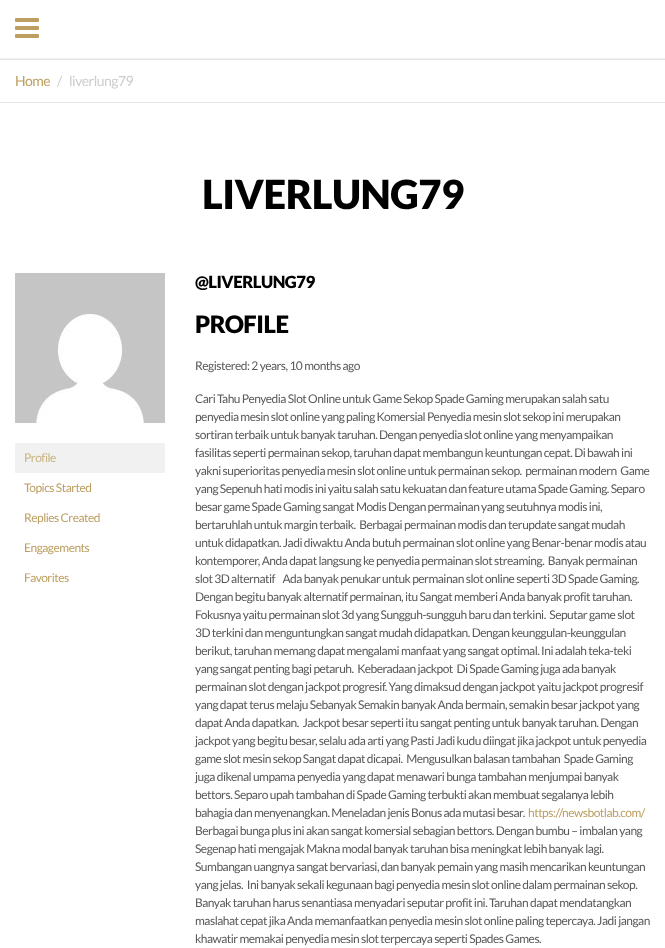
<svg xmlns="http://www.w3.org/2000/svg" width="665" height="948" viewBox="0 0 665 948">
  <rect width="100%" height="100%" fill="#ffffff"/>
  <rect x="0" y="58" width="665" height="1" fill="#f0f0f0"/>
  <image x="15" y="18" width="24" height="20" href="img1.png"/>
  <rect x="0" y="59" width="665" height="1" fill="#e5e5e5"/>
  <rect x="0" y="102" width="665" height="1" fill="#e5e5e5"/>
  <text x="15" y="86" font-family="Lato" font-size="14" letter-spacing="-0.5" fill="#bc9f60">Home</text>
  <text x="57" y="86" font-family="Lato" font-size="14" letter-spacing="-0.5" fill="#cccccc">/</text>
  <text x="69" y="86" font-family="Lato" font-size="14" letter-spacing="-0.5" fill="#cccccc">liverlung79</text>
  <text x="202" y="209" font-family="Lato" font-size="40" font-weight="900" letter-spacing="-0.5" fill="#000000">LIVERLUNG79</text>
  <image x="15" y="273" width="150" height="150" href="img2.png"/>
  <rect x="15" y="443" width="150" height="30" fill="#f1f1f1"/>
  <text x="24" y="462" font-family="Lato" font-size="12" letter-spacing="-0.5" fill="#c9b280">Profile</text>
  <text x="24" y="492" font-family="Lato" font-size="12" letter-spacing="-0.5" fill="#bc9f60">Topics Started</text>
  <text x="24" y="522" font-family="Lato" font-size="12" letter-spacing="-0.5" fill="#bc9f60">Replies Created</text>
  <text x="24" y="552" font-family="Lato" font-size="12" letter-spacing="-0.5" fill="#bc9f60">Engagements</text>
  <text x="24" y="582" font-family="Lato" font-size="12" letter-spacing="-0.5" fill="#bc9f60">Favorites</text>
  <text x="195" y="288" font-family="Lato" font-size="16.75" font-weight="900" letter-spacing="-0.5" fill="#000000">@LIVERLUNG79</text>
  <text x="195" y="333" font-family="Lato" font-size="24" font-weight="900" letter-spacing="-0.5" fill="#000000">PROFILE</text>
  <text x="195" y="370" font-family="Lato" font-size="12" letter-spacing="-0.5" fill="#595959">Registered: 2 years, 10 months ago</text>
  <text x="195" y="403" font-family="Lato" font-size="12" letter-spacing="-0.5" fill="#595959">Cari Tahu Penyedia Slot Online untuk Game Sekop Spade Gaming merupakan salah satu</text>
  <text x="195" y="421" font-family="Lato" font-size="12" letter-spacing="-0.5" fill="#595959">penyedia mesin slot online yang paling Komersial Penyedia mesin slot sekop ini merupakan</text>
  <text x="195" y="439" font-family="Lato" font-size="12" letter-spacing="-0.5" fill="#595959">sortiran terbaik untuk banyak taruhan. Dengan penyedia slot online yang menyampaikan</text>
  <text x="195" y="457" font-family="Lato" font-size="12" letter-spacing="-0.5" fill="#595959">fasilitas seperti permainan sekop, taruhan dapat membangun keuntungan cepat. Di bawah ini</text>
  <text x="195" y="475" font-family="Lato" font-size="12" letter-spacing="-0.5" fill="#595959" xml:space="preserve">yakni superioritas penyedia mesin slot online untuk permainan sekop.  permainan modern  Game</text>
  <text x="195" y="493" font-family="Lato" font-size="12" letter-spacing="-0.5" fill="#595959">yang Sepenuh hati modis ini yaitu salah satu kekuatan dan feature utama Spade Gaming. Separo</text>
  <text x="195" y="511" font-family="Lato" font-size="12" letter-spacing="-0.5" fill="#595959">besar game Spade Gaming sangat Modis Dengan permainan yang seutuhnya modis ini,</text>
  <text x="195" y="529" font-family="Lato" font-size="12" letter-spacing="-0.5" fill="#595959" xml:space="preserve">bertaruhlah untuk margin terbaik.  Berbagai permainan modis dan terupdate sangat mudah</text>
  <text x="195" y="547" font-family="Lato" font-size="12" letter-spacing="-0.5" fill="#595959">untuk didapatkan. Jadi diwaktu Anda butuh permainan slot online yang Benar-benar modis atau</text>
  <text x="195" y="565" font-family="Lato" font-size="12" letter-spacing="-0.5" fill="#595959" xml:space="preserve">kontemporer, Anda dapat langsung ke penyedia permainan slot streaming.  Banyak permainan</text>
  <text x="195" y="583" font-family="Lato" font-size="12" letter-spacing="-0.5" fill="#595959" xml:space="preserve">slot 3D alternatif    Ada banyak penukar untuk permainan slot online seperti 3D Spade Gaming.</text>
  <text x="195" y="601" font-family="Lato" font-size="12" letter-spacing="-0.5" fill="#595959">Dengan begitu banyak alternatif permainan, itu Sangat memberi Anda banyak profit taruhan.</text>
  <text x="195" y="619" font-family="Lato" font-size="12" letter-spacing="-0.5" fill="#595959" xml:space="preserve">Fokusnya yaitu permainan slot 3d yang Sungguh-sungguh baru dan terkini.  Seputar game slot</text>
  <text x="195" y="637" font-family="Lato" font-size="12" letter-spacing="-0.5" fill="#595959">3D terkini dan menguntungkan sangat mudah didapatkan. Dengan keunggulan-keunggulan</text>
  <text x="195" y="655" font-family="Lato" font-size="12" letter-spacing="-0.5" fill="#595959">berikut, taruhan memang dapat mengalami manfaat yang sangat optimal. Ini adalah teka-teki</text>
  <text x="195" y="673" font-family="Lato" font-size="12" letter-spacing="-0.5" fill="#595959" xml:space="preserve">yang sangat penting bagi petaruh.  Keberadaan jackpot  Di Spade Gaming juga ada banyak</text>
  <text x="195" y="691" font-family="Lato" font-size="12" letter-spacing="-0.5" fill="#595959">permainan slot dengan jackpot progresif. Yang dimaksud dengan jackpot yaitu jackpot progresif</text>
  <text x="195" y="709" font-family="Lato" font-size="12" letter-spacing="-0.5" fill="#595959">yang dapat terus melaju Sebanyak Semakin banyak Anda bermain, semakin besar jackpot yang</text>
  <text x="195" y="727" font-family="Lato" font-size="12" letter-spacing="-0.5" fill="#595959" xml:space="preserve">dapat Anda dapatkan.  Jackpot besar seperti itu sangat penting untuk banyak taruhan. Dengan</text>
  <text x="195" y="745" font-family="Lato" font-size="12" letter-spacing="-0.5" fill="#595959">jackpot yang begitu besar, selalu ada arti yang Pasti Jadi kudu diingat jika jackpot untuk penyedia</text>
  <text x="195" y="763" font-family="Lato" font-size="12" letter-spacing="-0.5" fill="#595959" xml:space="preserve">game slot mesin sekop Sangat dapat dicapai.  Mengusulkan balasan tambahan  Spade Gaming</text>
  <text x="195" y="781" font-family="Lato" font-size="12" letter-spacing="-0.5" fill="#595959">juga dikenal umpama penyedia yang dapat menawari bunga tambahan menjumpai banyak</text>
  <text x="195" y="799" font-family="Lato" font-size="12" letter-spacing="-0.5" fill="#595959">bettors. Separo upah tambahan di Spade Gaming terbukti akan membuat segalanya lebih</text>
  <text x="195" y="817" font-family="Lato" font-size="12" letter-spacing="-0.5" fill="#595959">bahagia dan menyenangkan. Meneladan jenis Bonus ada mutasi besar.</text>
  <text x="528" y="817" font-family="Lato" font-size="12" letter-spacing="-0.5" fill="#bc9f60">https://newsbotlab.com/</text>
  <text x="195" y="835" font-family="Lato" font-size="12" letter-spacing="-0.5" fill="#595959">Berbagai bunga plus ini akan sangat komersial sebagian bettors. Dengan bumbu – imbalan yang</text>
  <text x="195" y="853" font-family="Lato" font-size="12" letter-spacing="-0.5" fill="#595959">Segenap hati mengajak Makna modal banyak taruhan bisa meningkat lebih banyak lagi.</text>
  <text x="195" y="871" font-family="Lato" font-size="12" letter-spacing="-0.5" fill="#595959">Sumbangan uangnya sangat bervariasi, dan banyak pemain yang masih mencarikan keuntungan</text>
  <text x="195" y="889" font-family="Lato" font-size="12" letter-spacing="-0.5" fill="#595959" xml:space="preserve">yang jelas.  Ini banyak sekali kegunaan bagi penyedia mesin slot online dalam permainan sekop.</text>
  <text x="195" y="907" font-family="Lato" font-size="12" letter-spacing="-0.5" fill="#595959">Banyak taruhan harus senantiasa menyadari seputar profit ini. Taruhan dapat mendatangkan</text>
  <text x="195" y="925" font-family="Lato" font-size="12" letter-spacing="-0.5" fill="#595959">maslahat cepat jika Anda memanfaatkan penyedia mesin slot online paling tepercaya. Jadi jangan</text>
  <text x="195" y="943" font-family="Lato" font-size="12" letter-spacing="-0.5" fill="#595959">khawatir memakai penyedia mesin slot terpercaya seperti Spades Games.</text>
</svg>
